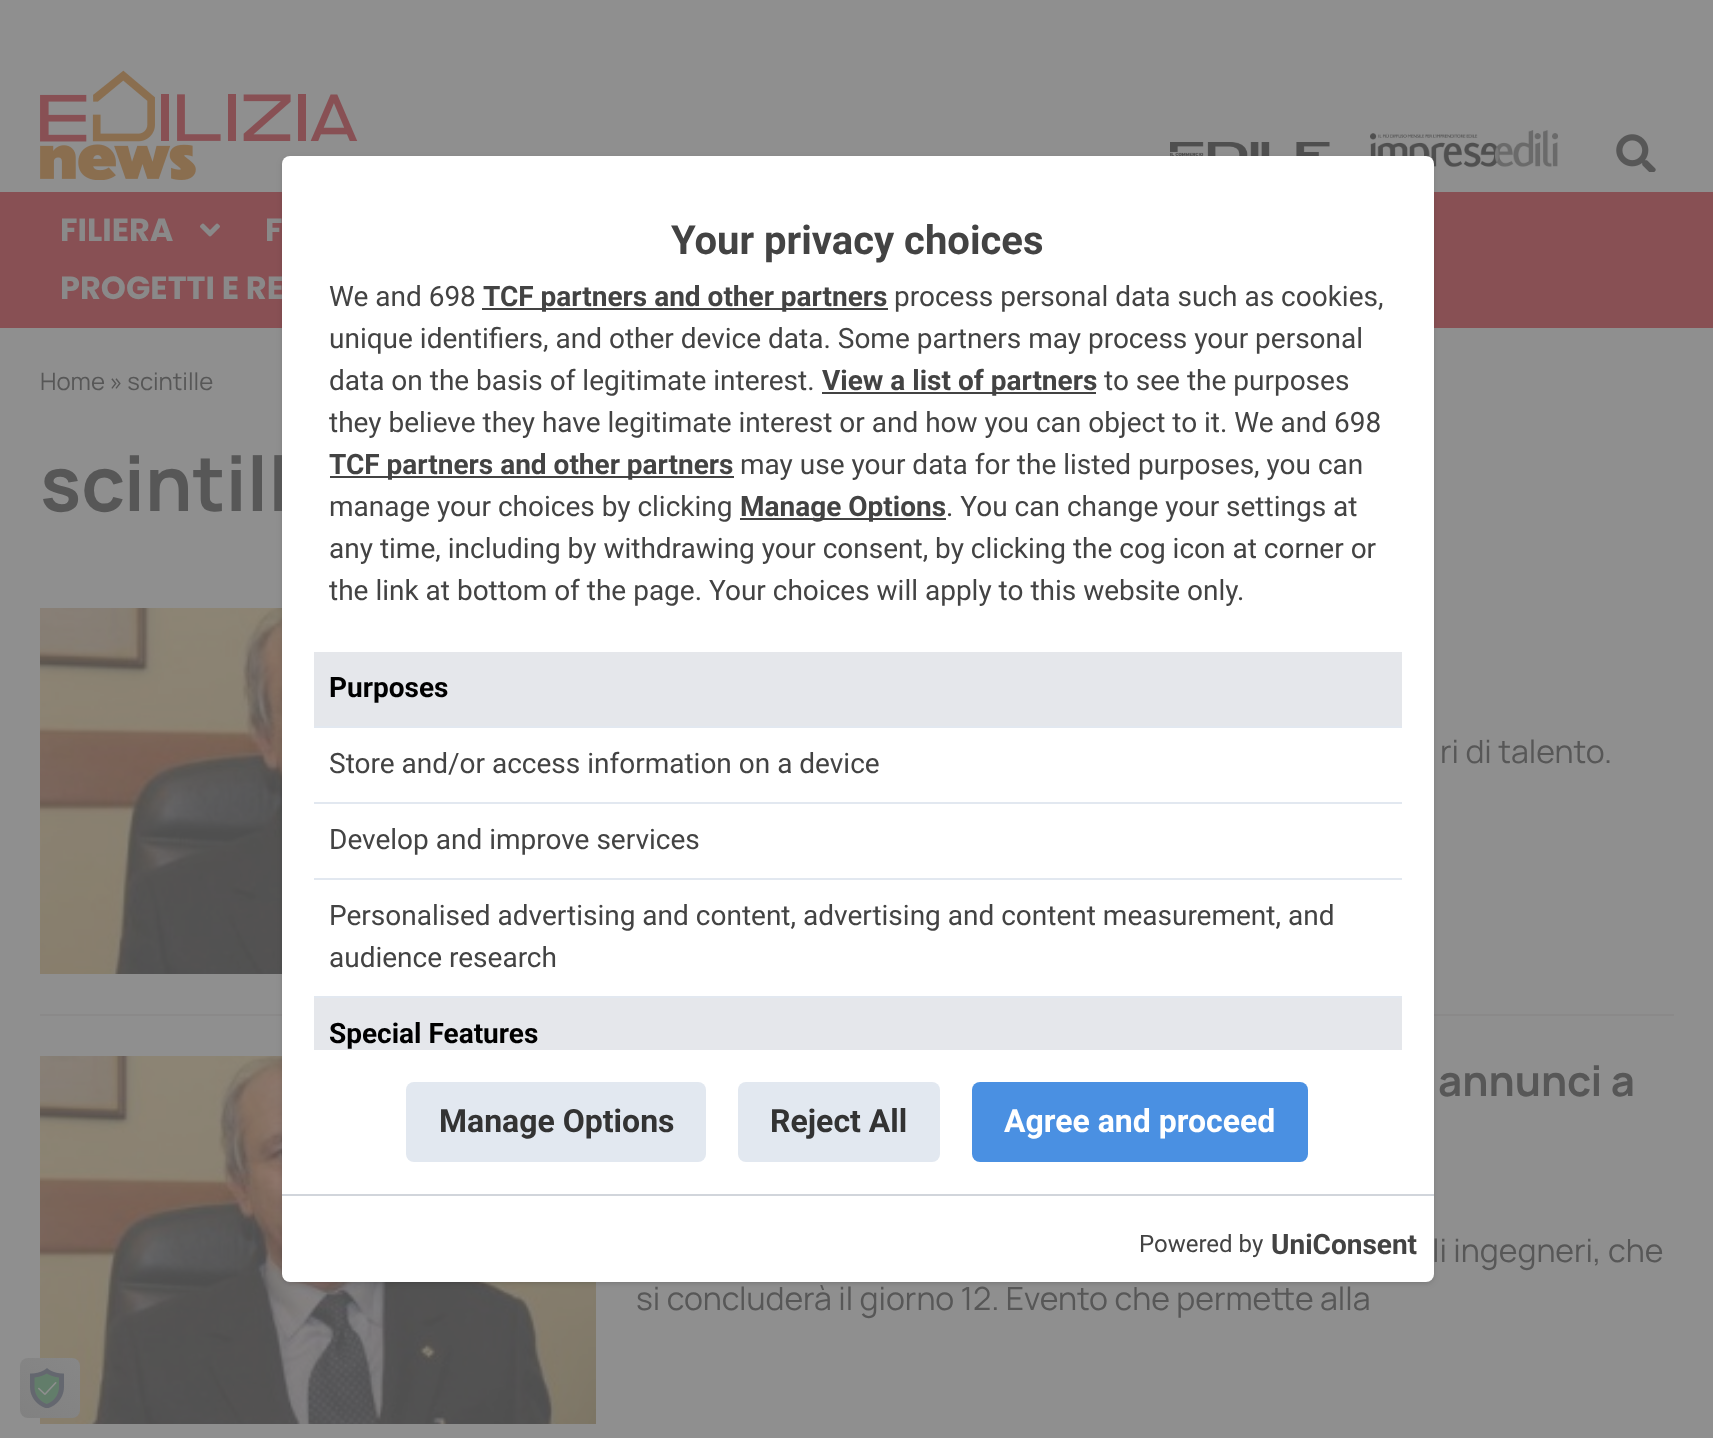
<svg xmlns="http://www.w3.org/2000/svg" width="1713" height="1438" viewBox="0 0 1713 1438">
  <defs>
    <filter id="blur1" x="-50%" y="-200%" width="200%" height="500%"><feGaussianBlur stdDeviation="2"/></filter>
    <filter id="blur2" x="-50%" y="-200%" width="200%" height="500%"><feGaussianBlur stdDeviation="3"/></filter>
    <linearGradient id="g1" gradientUnits="userSpaceOnUse" x1="25" y1="1422" x2="75" y2="1354"><stop offset="0" stop-color="#818181"/><stop offset="1" stop-color="#878787"/></linearGradient>
  </defs>
  <rect width="100%" height="100%" fill="#8f8f8f"/>
  <image x="40" y="70" width="318" height="110" href="img1.png"/>
  <image x="1170" y="142" width="160" height="14" href="img2.png"/>
  <image x="1370" y="130" width="188" height="38" href="img3.png"/>
  <image x="1616" y="134" width="40" height="38" href="img4.png"/>
  <rect x="0" y="192" width="1713" height="136" fill="#885054"/>
  <text x="60" y="241" font-family="Poppins" font-size="32" font-weight="bold" fill="#8a8989">FILIERA</text>
  <image x="200" y="223" width="20" height="14" href="img5.png"/>
  <text x="265" y="241" font-family="Poppins" font-size="32" font-weight="bold" fill="#8a8989">F</text>
  <text x="60" y="299" font-family="Poppins" font-size="32" font-weight="bold" fill="#8a8989">PROGETTI E RE</text>
  <rect x="40" y="1014" width="1634" height="2" fill="#8a8989"/>
  <image x="40" y="608" width="242" height="366" href="img6.png"/>
  <image x="40" y="1056" width="556" height="368" href="img7.png"/>
  <rect x="284" y="160" width="1148" height="1122" rx="6" fill="#000000" fill-opacity="0.1" filter="url(#blur1)"/>
  <rect x="282" y="158" width="1152" height="1126" rx="8" fill="#000000" fill-opacity="0.1" filter="url(#blur2)"/>
  <text x="40" y="511" font-family="Manrope" font-size="76" font-weight="bold" fill="#575757">scintill</text>
  <rect x="282" y="156" width="1152" height="1126" rx="8" fill="#ffffff"/>
  <text x="671" y="254" font-family="Roboto" font-size="40" font-weight="bold" fill="#434343">Your privacy choices</text>
  <text x="329" y="306" font-family="Roboto" font-size="28" fill="#434343">We and 698</text>
  <rect x="482" y="308" width="406" height="2" fill="#434343"/>
  <text x="483" y="306" font-family="Roboto" font-size="28" font-weight="bold" fill="#434343">TCF partners and other partners</text>
  <text x="894" y="306" font-family="Roboto" font-size="28" fill="#434343">process personal data such as cookies,</text>
  <text x="329" y="348" font-family="Roboto" font-size="28" fill="#434343">unique identifiers, and other device data. Some partners may process your personal</text>
  <text x="329" y="390" font-family="Roboto" font-size="28" fill="#434343">data on the basis of legitimate interest.</text>
  <rect x="822" y="392" width="274" height="2" fill="#434343"/>
  <text x="822" y="390" font-family="Roboto" font-size="28" font-weight="bold" fill="#434343">View a list of partners</text>
  <text x="1104" y="390" font-family="Roboto" font-size="28" fill="#434343">to see the purposes</text>
  <text x="329" y="432" font-family="Roboto" font-size="28" fill="#434343">they believe they have legitimate interest or and how you can object to it. We and 698</text>
  <rect x="330" y="476" width="404" height="2" fill="#434343"/>
  <text x="329" y="474" font-family="Roboto" font-size="28" font-weight="bold" fill="#434343">TCF partners and other partners</text>
  <text x="740" y="474" font-family="Roboto" font-size="28" fill="#434343">may use your data for the listed purposes, you can</text>
  <text x="329" y="516" font-family="Roboto" font-size="28" fill="#434343">manage your choices by clicking</text>
  <rect x="740" y="518" width="206" height="2" fill="#434343"/>
  <text x="740" y="516" font-family="Roboto" font-size="28" font-weight="bold" fill="#434343">Manage Options</text>
  <text x="946" y="516" font-family="Roboto" font-size="28" fill="#434343">. You can change your settings at</text>
  <text x="329" y="558" font-family="Roboto" font-size="28" fill="#434343">any time, including by withdrawing your consent, by clicking the cog icon at corner or</text>
  <text x="329" y="600" font-family="Roboto" font-size="28" fill="#434343">the link at bottom of the page. Your choices will apply to this website only.</text>
  <rect x="314" y="652" width="1088" height="74" fill="#e5e7eb"/>
  <rect x="314" y="726" width="1088" height="2" fill="#e2e8f0"/>
  <text x="329" y="697" font-family="Roboto" font-size="28" font-weight="bold" fill="#000000">Purposes</text>
  <rect x="314" y="802" width="1088" height="2" fill="#e2e8f0"/>
  <text x="329" y="773" font-family="Roboto" font-size="28" fill="#434343">Store and/or access information on a device</text>
  <rect x="314" y="878" width="1088" height="2" fill="#e2e8f0"/>
  <text x="329" y="849" font-family="Roboto" font-size="28" fill="#434343">Develop and improve services</text>
  <rect x="314" y="996" width="1088" height="2" fill="#e2e8f0"/>
  <text x="329" y="925" font-family="Roboto" font-size="28" fill="#434343">Personalised advertising and content, advertising and content measurement, and</text>
  <text x="329" y="967" font-family="Roboto" font-size="28" fill="#434343">audience research</text>
  <rect x="314" y="998" width="1088" height="52" fill="#e5e7eb"/>
  <text x="329" y="1043" font-family="Roboto" font-size="28" font-weight="bold" fill="#000000">Special Features</text>
  <rect x="406" y="1082" width="300" height="80" rx="8" fill="#e2e8f0"/>
  <text x="439" y="1132" font-family="Roboto" font-size="32" font-weight="bold" fill="#333333">Manage Options</text>
  <rect x="738" y="1082" width="202" height="80" rx="8" fill="#e2e8f0"/>
  <text x="770" y="1132" font-family="Roboto" font-size="32" font-weight="bold" fill="#333333">Reject All</text>
  <rect x="972" y="1082" width="336" height="80" rx="8" fill="#4a90e2"/>
  <text x="1004" y="1132" font-family="Roboto" font-size="32" font-weight="bold" fill="#ffffff">Agree and proceed</text>
  <rect x="282" y="1194" width="1152" height="2" fill="#d1d5db"/>
  <text x="1139" y="1252" font-family="Roboto" font-size="24" fill="#434343">Powered by</text>
  <text x="1271" y="1254" font-family="Roboto" font-size="28" font-weight="bold" fill="#434343">UniConsent</text>
  <text x="40" y="390" font-family="Manrope" font-size="24" fill="#575757">Home » scintille</text>
  <text x="1440" y="763" font-family="Manrope" font-size="32" fill="#575757">ri di talento.</text>
  <text x="1438" y="1096" font-family="Manrope" font-size="42" font-weight="bold" fill="#575757">annunci a</text>
  <text x="1432" y="1262" font-family="Manrope" font-size="32" fill="#575757">li ingegneri, che</text>
  <text x="636" y="1310" font-family="Manrope" font-size="32" fill="#575757">si concluderà il giorno 12. Evento che permette alla</text>
  <rect x="20" y="1358" width="60" height="60" rx="8" fill="url(#g1)"/>
  <image x="30" y="1368" width="34" height="40" href="img8.png"/>
</svg>
